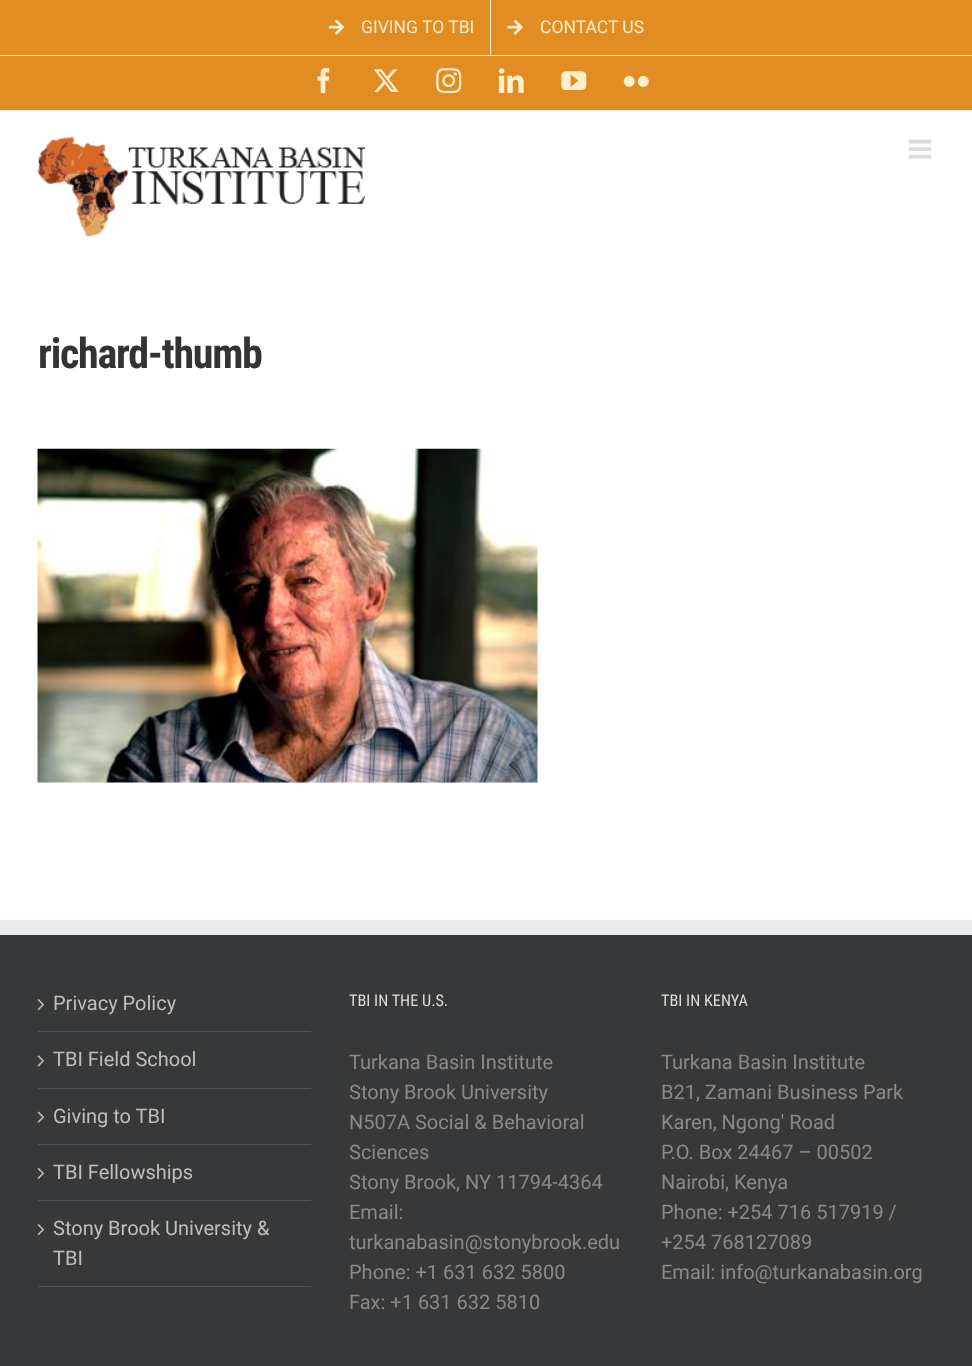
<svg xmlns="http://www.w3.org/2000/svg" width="972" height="1366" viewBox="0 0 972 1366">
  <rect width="100%" height="100%" fill="#ffffff"/>
  <rect x="0" y="0" width="972" height="110" fill="#e28d24"/>
  <rect x="0" y="110" width="972" height="1" fill="#ffefcb"/>
  <rect x="0" y="55" width="972" height="1" fill="#ffefcb"/>
  <image x="328" y="19" width="16" height="16" href="img1.png"/>
  <text x="361" y="33" font-family="Roboto" font-size="17.5" fill="#ffefcb">GIVING TO TBI</text>
  <rect x="490" y="0" width="1" height="55" fill="#ffefcb"/>
  <image x="507" y="19" width="16" height="16" href="img2.png"/>
  <text x="540" y="33" font-family="Roboto" font-size="17.5" fill="#ffefcb">CONTACT US</text>
  <image x="317" y="68" width="13" height="26" href="img3.png"/>
  <image x="373" y="69" width="26" height="23" href="img4.png"/>
  <image x="436" y="68" width="26" height="26" href="img5.png"/>
  <image x="498" y="68" width="26" height="25" href="img6.png"/>
  <image x="561" y="71" width="26" height="19" href="img7.png"/>
  <image x="623" y="75" width="26" height="12" href="img8.png"/>
  <image x="37" y="136" width="328" height="101" href="img9.png"/>
  <image x="908" y="139" width="24" height="20" href="img10.png"/>
  <text x="38" y="368" font-family="Roboto Condensed" font-size="42" font-weight="bold" letter-spacing="-1.25" fill="#333333">richard-thumb</text>
  <image x="37" y="448" width="501" height="335" href="img11.png"/>
  <rect x="0" y="935" width="972" height="431" fill="#363839"/>
  <rect x="0" y="920" width="972" height="15" fill="#e9eaee"/>
  <rect x="38" y="1031" width="273" height="1" fill="#505152"/>
  <image x="37" y="999" width="8" height="12" href="img12.png"/>
  <text x="53" y="1010" font-family="Roboto" font-size="20" fill="#bfbfbf">Privacy Policy</text>
  <rect x="38" y="1088" width="273" height="1" fill="#505152"/>
  <image x="37" y="1055" width="8" height="12" href="img13.png"/>
  <text x="53" y="1066" font-family="Roboto" font-size="20" fill="#bfbfbf">TBI Field School</text>
  <rect x="38" y="1144" width="273" height="1" fill="#505152"/>
  <image x="37" y="1111" width="8" height="12" href="img14.png"/>
  <text x="53" y="1123" font-family="Roboto" font-size="20" fill="#bfbfbf">Giving to TBI</text>
  <rect x="38" y="1200" width="273" height="1" fill="#505152"/>
  <image x="37" y="1167" width="8" height="12" href="img15.png"/>
  <text x="53" y="1179" font-family="Roboto" font-size="20" fill="#bfbfbf">TBI Fellowships</text>
  <rect x="38" y="1286" width="273" height="1" fill="#505152"/>
  <image x="37" y="1224" width="8" height="12" href="img12.png"/>
  <text x="53" y="1235" font-family="Roboto" font-size="20" fill="#bfbfbf">Stony Brook University &amp;</text>
  <text x="53" y="1265" font-family="Roboto" font-size="20" fill="#bfbfbf">TBI</text>
  <text x="349" y="1006" font-family="Roboto Condensed" font-size="16.25" fill="#dddddd">TBI IN THE U.S.</text>
  <text x="349" y="1069" font-family="Roboto" font-size="20" fill="#8c8989">Turkana Basin Institute</text>
  <text x="349" y="1099" font-family="Roboto" font-size="20" fill="#8c8989">Stony Brook University</text>
  <text x="349" y="1129" font-family="Roboto" font-size="20" fill="#8c8989">N507A Social &amp; Behavioral</text>
  <text x="349" y="1159" font-family="Roboto" font-size="20" fill="#8c8989">Sciences</text>
  <text x="349" y="1189" font-family="Roboto" font-size="20" fill="#8c8989">Stony Brook, NY 11794-4364</text>
  <text x="349" y="1219" font-family="Roboto" font-size="20" fill="#8c8989">Email:</text>
  <text x="349" y="1249" font-family="Roboto" font-size="20" fill="#8c8989">turkanabasin@stonybrook.edu</text>
  <text x="349" y="1279" font-family="Roboto" font-size="20" fill="#8c8989">Phone: +1 631 632 5800</text>
  <text x="349" y="1309" font-family="Roboto" font-size="20" fill="#8c8989">Fax: +1 631 632 5810</text>
  <text x="661" y="1006" font-family="Roboto Condensed" font-size="16.25" fill="#dddddd">TBI IN KENYA</text>
  <text x="661" y="1069" font-family="Roboto" font-size="20" fill="#8c8989">Turkana Basin Institute</text>
  <text x="661" y="1099" font-family="Roboto" font-size="20" fill="#8c8989">B21, Zamani Business Park</text>
  <text x="661" y="1129" font-family="Roboto" font-size="20" fill="#8c8989">Karen, Ngong' Road</text>
  <text x="661" y="1159" font-family="Roboto" font-size="20" fill="#8c8989">P.O. Box 24467 – 00502</text>
  <text x="661" y="1189" font-family="Roboto" font-size="20" fill="#8c8989">Nairobi, Kenya</text>
  <text x="661" y="1219" font-family="Roboto" font-size="20" fill="#8c8989">Phone: +254 716 517919 /</text>
  <text x="661" y="1249" font-family="Roboto" font-size="20" fill="#8c8989">+254 768127089</text>
  <text x="661" y="1279" font-family="Roboto" font-size="20" fill="#8c8989">Email: info@turkanabasin.org</text>
</svg>
